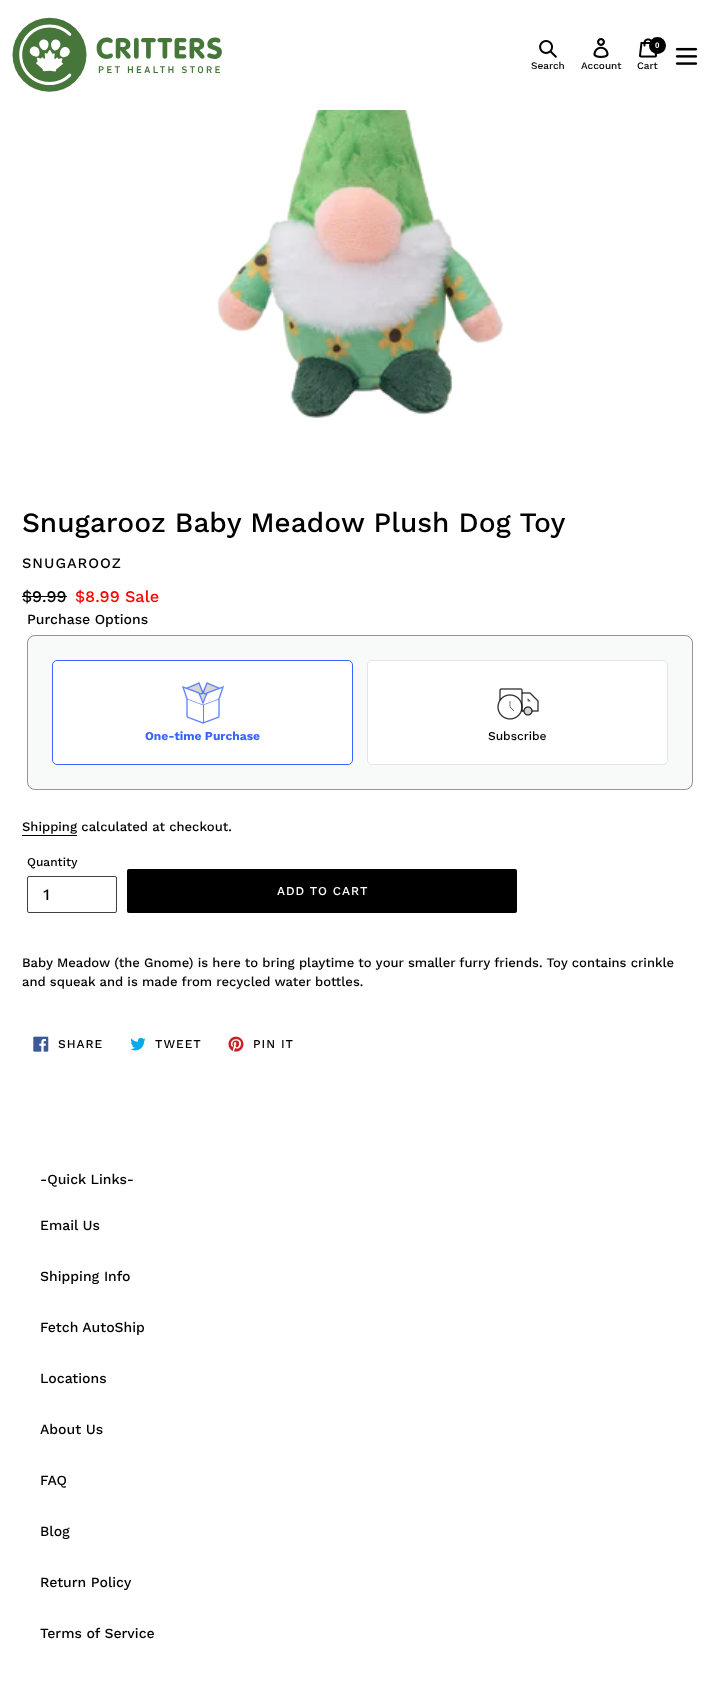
<svg xmlns="http://www.w3.org/2000/svg" width="720" height="1691" viewBox="0 0 720 1691">
  <rect width="100%" height="100%" fill="#ffffff"/>
  <image x="12" y="17" width="210" height="75" href="img1.png"/>
  <image x="539" y="40" width="18" height="18" href="img2.png"/>
  <text x="531" y="69" font-family="Work Sans" font-size="10" font-weight="500" fill="#000000">Search</text>
  <image x="593" y="38" width="16" height="20" href="img3.png"/>
  <text x="581" y="69" font-family="Work Sans" font-size="10" font-weight="500" fill="#000000">Account</text>
  <image x="639" y="38" width="18" height="20" href="img4.png"/>
  <circle cx="657.5" cy="45.5" r="8.5" fill="#000000"/>
  <text x="655" y="48" font-family="Liberation Sans" font-size="8" font-weight="bold" fill="#ffffff">0</text>
  <text x="637" y="69" font-family="Work Sans" font-size="10" font-weight="500" fill="#000000">Cart</text>
  <image x="675" y="47" width="23" height="18" href="img5.png"/>
  <image x="217" y="110" width="287" height="308" href="img6.png"/>
  <text x="22" y="532" font-family="Work Sans" font-size="28" font-weight="500" fill="#000000">Snugarooz Baby Meadow Plush Dog Toy</text>
  <text x="22" y="568" font-family="Work Sans" font-size="14.5" font-weight="500" letter-spacing="1" fill="#000000">SNUGAROOZ</text>
  <text x="22" y="602" font-family="Work Sans" font-size="16.25" font-weight="500" fill="#000000">$9.99</text>
  <rect x="22" y="596" width="45" height="1" fill="#000000"/>
  <text x="75" y="602" font-family="Work Sans" font-size="16.25" font-weight="500" fill="#ff0000">$8.99 Sale</text>
  <text x="27" y="624" font-family="Work Sans" font-size="14" font-weight="500" fill="#000000">Purchase Options</text>
  <rect x="27" y="635" width="666" height="155" rx="8" fill="#f8f9f9"/>
  <rect x="27.5" y="635.5" width="665" height="154" rx="7.5" fill="none" stroke="#000000" stroke-opacity="0.4"/>
  <rect x="52.5" y="660.5" width="300" height="104" rx="4.5" fill="#ffffff" stroke="#3b63ff"/>
  <image x="182" y="682" width="42" height="42" href="img7.png"/>
  <text x="145" y="740" font-family="Work Sans" font-size="12" font-weight="bold" fill="#3b63ff">One-time Purchase</text>
  <rect x="367" y="660" width="301" height="105" rx="5" fill="#ffffff"/>
  <rect x="367.5" y="660.5" width="300" height="104" rx="4.5" fill="none" stroke="#000000" stroke-opacity="0.1"/>
  <image x="497" y="688" width="42" height="32" href="img8.png"/>
  <text x="488" y="740" font-family="Work Sans" font-size="12" font-weight="500" fill="#000000">Subscribe</text>
  <text x="22" y="831" font-family="Work Sans" font-size="13" font-weight="500" fill="#000000">Shipping calculated at checkout.</text>
  <rect x="22" y="835" width="55" height="1" fill="#000000"/>
  <text x="27" y="866" font-family="Work Sans" font-size="12" font-weight="500" fill="#000000">Quantity</text>
  <rect x="27.5" y="876.5" width="89" height="36" rx="1.5" fill="none" stroke="#3d4246"/>
  <text x="43" y="900" font-family="Work Sans" font-size="16" font-weight="500" fill="#000000">1</text>
  <rect x="127" y="869" width="390" height="44" rx="2" fill="#000000"/>
  <text x="277" y="895" font-family="Work Sans" font-size="12" font-weight="500" letter-spacing="1" fill="#ffffff">ADD TO CART</text>
  <text x="22" y="967" font-family="Work Sans" font-size="13" font-weight="500" fill="#000000">Baby Meadow (the Gnome) is here to bring playtime to your smaller furry friends. Toy contains crinkle</text>
  <text x="22" y="986" font-family="Work Sans" font-size="13" font-weight="500" fill="#000000">and squeak and is made from recycled water bottles.</text>
  <image x="33" y="1036" width="16" height="16" href="img9.png"/>
  <text x="58" y="1048" font-family="Work Sans" font-size="12" font-weight="500" letter-spacing="1" fill="#000000">SHARE</text>
  <image x="130" y="1037" width="16" height="14" href="img10.png"/>
  <text x="155" y="1048" font-family="Work Sans" font-size="12" font-weight="500" letter-spacing="1" fill="#000000">TWEET</text>
  <image x="228" y="1036" width="16" height="16" href="img11.png"/>
  <text x="253" y="1048" font-family="Work Sans" font-size="12" font-weight="500" letter-spacing="1" fill="#000000">PIN IT</text>
  <text x="40" y="1184" font-family="Work Sans" font-size="14" font-weight="500" fill="#000000">-Quick Links-</text>
  <text x="40" y="1230" font-family="Work Sans" font-size="14" font-weight="500" fill="#000000">Email Us</text>
  <text x="40" y="1281" font-family="Work Sans" font-size="14" font-weight="500" fill="#000000">Shipping Info</text>
  <text x="40" y="1332" font-family="Work Sans" font-size="14" font-weight="500" fill="#000000">Fetch AutoShip</text>
  <text x="40" y="1383" font-family="Work Sans" font-size="14" font-weight="500" fill="#000000">Locations</text>
  <text x="40" y="1434" font-family="Work Sans" font-size="14" font-weight="500" fill="#000000">About Us</text>
  <text x="40" y="1485" font-family="Work Sans" font-size="14" font-weight="500" fill="#000000">FAQ</text>
  <text x="40" y="1536" font-family="Work Sans" font-size="14" font-weight="500" fill="#000000">Blog</text>
  <text x="40" y="1587" font-family="Work Sans" font-size="14" font-weight="500" fill="#000000">Return Policy</text>
  <text x="40" y="1638" font-family="Work Sans" font-size="14" font-weight="500" fill="#000000">Terms of Service</text>
</svg>
